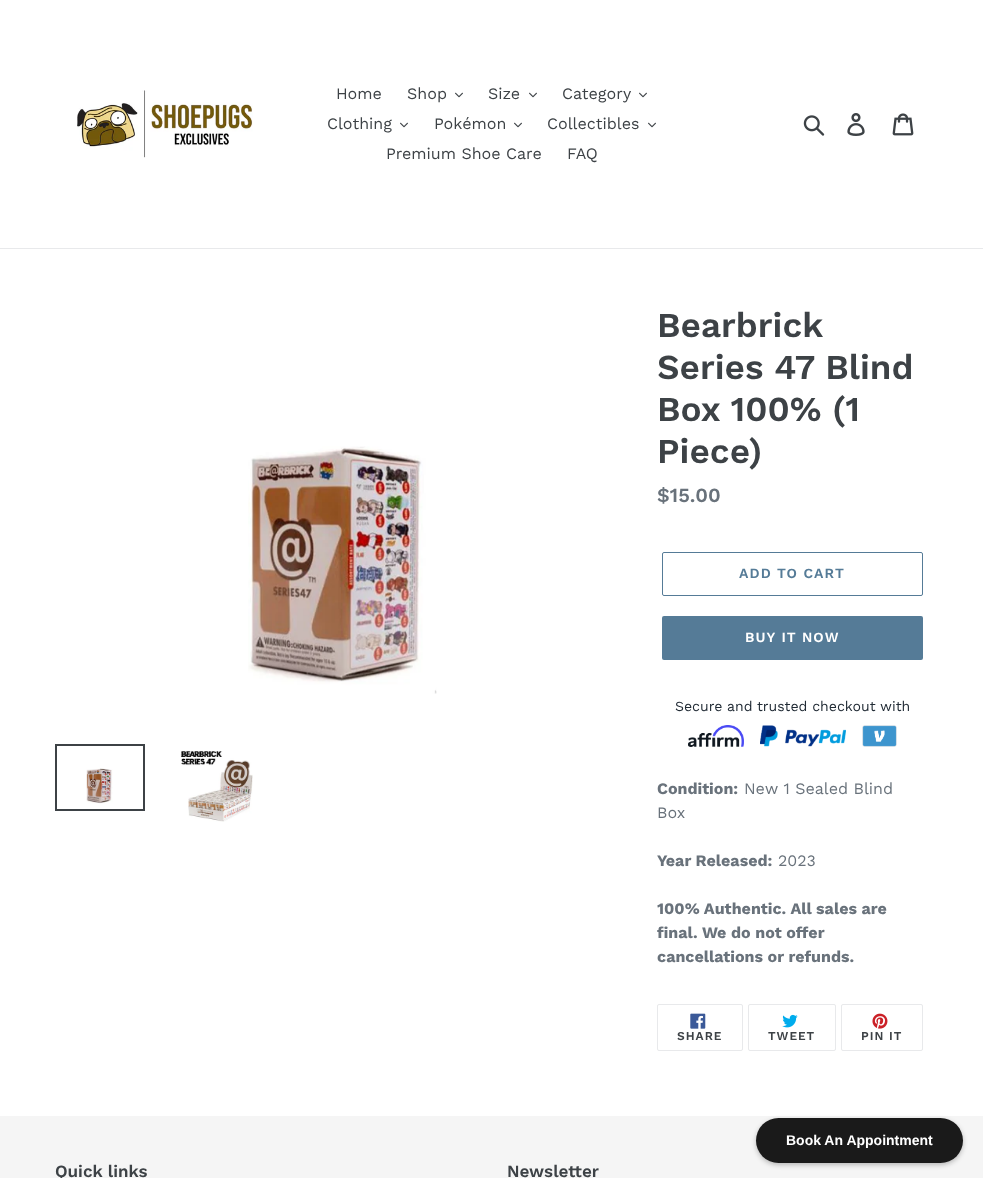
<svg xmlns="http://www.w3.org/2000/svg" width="983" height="1178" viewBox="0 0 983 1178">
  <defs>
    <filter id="blur1" x="-50%" y="-200%" width="200%" height="500%"><feGaussianBlur stdDeviation="2.5"/></filter>
  </defs>
  <rect width="100%" height="100%" fill="#ffffff"/>
  <rect x="0" y="248" width="983" height="1" fill="#e8e9eb"/>
  <image x="77" y="90" width="176" height="68" href="img1.png"/>
  <text x="336" y="99" font-family="Work Sans" font-size="16" fill="#3d4246">Home</text>
  <text x="407" y="99" font-family="Work Sans" font-size="16" fill="#3d4246">Shop</text>
  <image x="455" y="92" width="8" height="6" href="img2.png"/>
  <text x="488" y="99" font-family="Work Sans" font-size="16" fill="#3d4246">Size</text>
  <image x="529" y="92" width="8" height="6" href="img2.png"/>
  <text x="562" y="99" font-family="Work Sans" font-size="16" fill="#3d4246">Category</text>
  <image x="639" y="92" width="8" height="6" href="img2.png"/>
  <text x="327" y="129" font-family="Work Sans" font-size="16" fill="#3d4246">Clothing</text>
  <image x="400" y="122" width="8" height="6" href="img2.png"/>
  <text x="434" y="129" font-family="Work Sans" font-size="16" fill="#3d4246">Pokémon</text>
  <image x="514" y="122" width="8" height="6" href="img2.png"/>
  <text x="547" y="129" font-family="Work Sans" font-size="16" fill="#3d4246">Collectibles</text>
  <image x="648" y="122" width="8" height="6" href="img2.png"/>
  <text x="386" y="159" font-family="Work Sans" font-size="16" fill="#3d4246">Premium Shoe Care</text>
  <text x="567" y="159" font-family="Work Sans" font-size="16" fill="#3d4246">FAQ</text>
  <image x="803" y="115" width="22" height="21" href="img3.png"/>
  <image x="847" y="113" width="18" height="23" href="img4.png"/>
  <image x="892" y="113" width="22" height="23" href="img5.png"/>
  <image x="248" y="446" width="189" height="248" href="img6.png"/>
  <rect x="56" y="745" width="88" height="65" fill="none" stroke="#3d4246" stroke-width="2"/>
  <image x="86" y="768" width="27" height="36" href="img7.png"/>
  <image x="180" y="751" width="73" height="71" href="img8.png"/>
  <text x="657" y="337" font-family="Work Sans" font-size="35" font-weight="600" fill="#3d4246">Bearbrick</text>
  <text x="657" y="379" font-family="Work Sans" font-size="35" font-weight="600" fill="#3d4246">Series 47 Blind</text>
  <text x="657" y="421" font-family="Work Sans" font-size="35" font-weight="600" fill="#3d4246">Box 100% (1</text>
  <text x="657" y="463" font-family="Work Sans" font-size="35" font-weight="600" fill="#3d4246">Piece)</text>
  <text x="657" y="502" font-family="Work Sans" font-size="20" font-weight="600" fill="#69727b">$15.00</text>
  <rect x="662.5" y="552.5" width="260" height="43" rx="1.5" fill="none" stroke="#557b97"/>
  <text x="739" y="578" font-family="Work Sans" font-size="14" font-weight="600" letter-spacing="1.1" fill="#557b97">ADD TO CART</text>
  <rect x="662" y="616" width="261" height="44" rx="2" fill="#557b97"/>
  <text x="745" y="642" font-family="Work Sans" font-size="14" font-weight="600" letter-spacing="1.1" fill="#ffffff">BUY IT NOW</text>
  <text x="675" y="711" font-family="Work Sans" font-size="14" fill="#212b35">Secure and trusted checkout with</text>
  <image x="688" y="725" width="56" height="22" href="img9.png"/>
  <image x="760" y="725" width="86" height="22" href="img10.png"/>
  <image x="862" y="725" width="35" height="22" href="img11.png"/>
  <text x="657" y="794" font-family="Work Sans" font-size="16" font-weight="bold" fill="#69727b">Condition:</text>
  <text x="744" y="794" font-family="Work Sans" font-size="16" fill="#69727b">New 1 Sealed Blind</text>
  <text x="657" y="818" font-family="Work Sans" font-size="16" fill="#69727b">Box</text>
  <text x="657" y="866" font-family="Work Sans" font-size="16" font-weight="bold" fill="#69727b">Year Released:</text>
  <text x="778" y="866" font-family="Work Sans" font-size="16" fill="#69727b">2023</text>
  <text x="657" y="914" font-family="Work Sans" font-size="16" font-weight="bold" fill="#69727b">100% Authentic. All sales are</text>
  <text x="657" y="938" font-family="Work Sans" font-size="16" font-weight="bold" fill="#69727b">final. We do not offer</text>
  <text x="657" y="962" font-family="Work Sans" font-size="16" font-weight="bold" fill="#69727b">cancellations or refunds.</text>
  <rect x="657.5" y="1004.5" width="85" height="46" rx="1.5" fill="none" stroke="#e8e9eb"/>
  <image x="690" y="1013" width="16" height="16" href="img12.png"/>
  <text x="677" y="1040" font-family="Work Sans" font-size="12" font-weight="600" letter-spacing="1" fill="#3d4246">SHARE</text>
  <rect x="748.5" y="1004.5" width="87" height="46" rx="1.5" fill="none" stroke="#e8e9eb"/>
  <image x="782" y="1014" width="16" height="14" href="img13.png"/>
  <text x="768" y="1040" font-family="Work Sans" font-size="12" font-weight="600" letter-spacing="1" fill="#3d4246">TWEET</text>
  <rect x="841.5" y="1004.5" width="81" height="46" rx="1.5" fill="none" stroke="#e8e9eb"/>
  <image x="872" y="1013" width="16" height="16" href="img14.png"/>
  <text x="861" y="1040" font-family="Work Sans" font-size="12" font-weight="600" letter-spacing="1" fill="#3d4246">PIN IT</text>
  <rect x="0" y="1116" width="983" height="62" fill="#f5f5f5"/>
  <text x="55" y="1177" font-family="Work Sans" font-size="17" font-weight="600" fill="#3d4246">Quick links</text>
  <text x="507" y="1177" font-family="Work Sans" font-size="17" font-weight="600" fill="#3d4246">Newsletter</text>
  <rect x="756" y="1120" width="207" height="45" rx="22.5" fill="#000000" fill-opacity="0.25" filter="url(#blur1)"/>
  <rect x="756" y="1118" width="207" height="45" rx="22.5" fill="#1a1a1a"/>
  <text x="786" y="1145" font-family="Liberation Sans" font-size="14" font-weight="bold" fill="#ffffff">Book An Appointment</text>
</svg>
